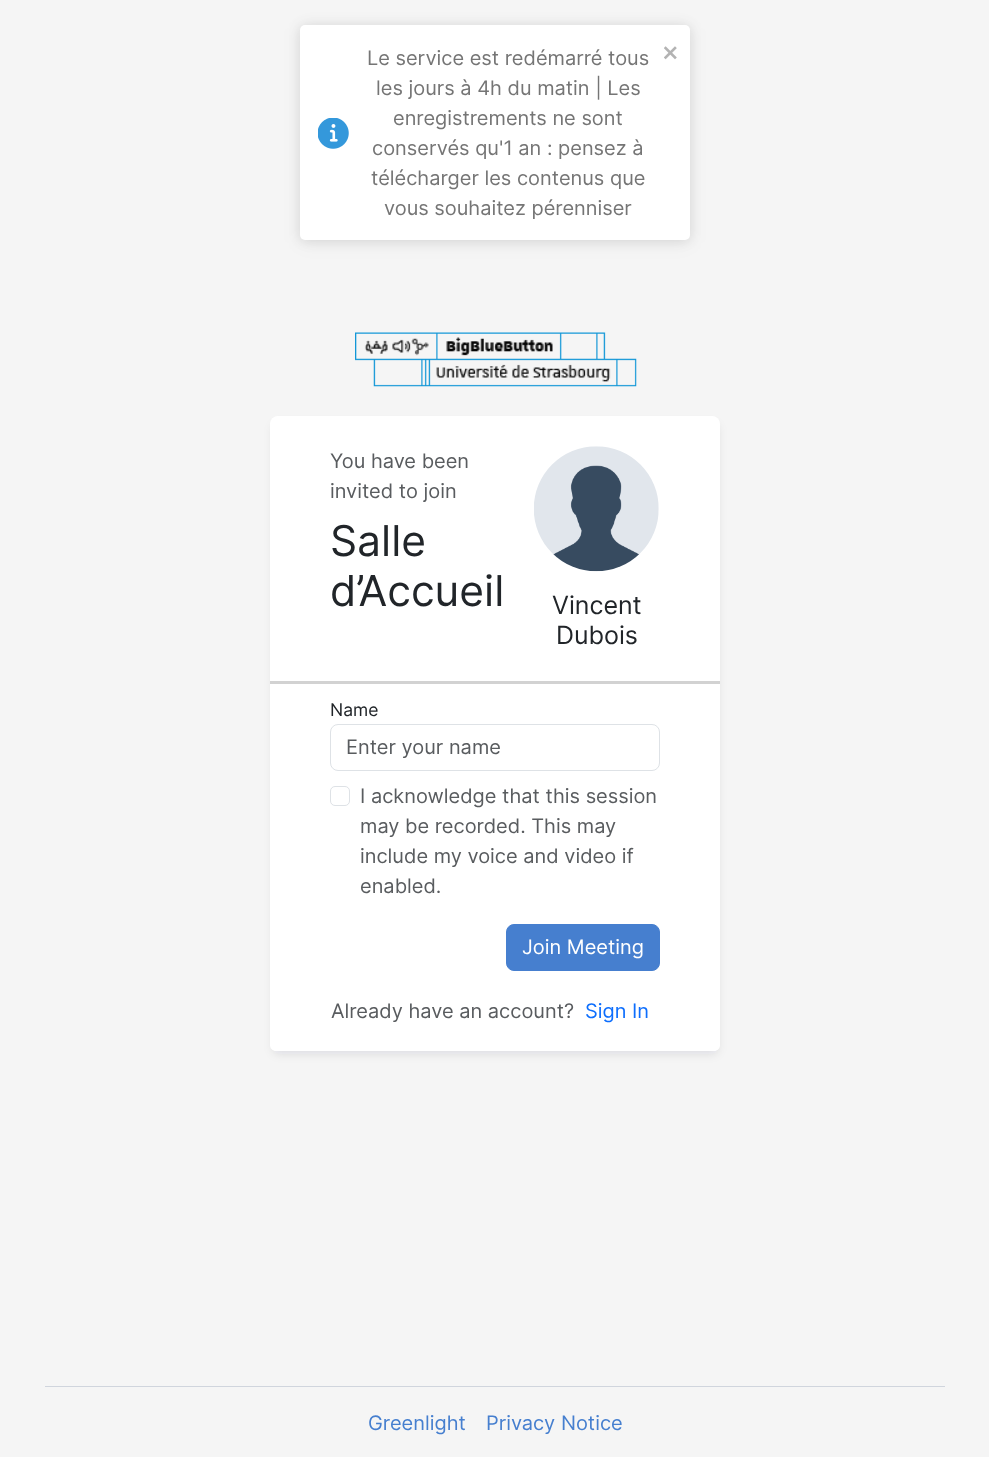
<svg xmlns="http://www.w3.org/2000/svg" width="989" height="1457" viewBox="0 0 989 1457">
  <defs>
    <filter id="blur1" x="-50%" y="-200%" width="200%" height="500%"><feGaussianBlur stdDeviation="9.5"/></filter>
    <filter id="blur2" x="-50%" y="-200%" width="200%" height="500%"><feGaussianBlur stdDeviation="6"/></filter>
    <filter id="blur3" x="-50%" y="-200%" width="200%" height="500%"><feGaussianBlur stdDeviation="5"/></filter>
  </defs>
  <rect width="100%" height="100%" fill="#f5f5f5"/>
  <rect x="300" y="28" width="390" height="215" rx="5" fill="#000000" fill-opacity="0.05" filter="url(#blur1)"/>
  <rect x="300" y="26" width="390" height="215" rx="5" fill="#000000" fill-opacity="0.1" filter="url(#blur2)"/>
  <rect x="300" y="25" width="390" height="215" rx="5" fill="#ffffff"/>
  <image x="318" y="118" width="31" height="31" href="img1.png"/>
  <text x="367" y="65" font-family="Inter" font-size="20" fill="#757575">Le service est redémarré tous</text>
  <text x="376" y="95" font-family="Inter" font-size="20" fill="#757575">les jours à 4h du matin | Les</text>
  <text x="393" y="125" font-family="Inter" font-size="20" fill="#757575">enregistrements ne sont</text>
  <text x="372" y="155" font-family="Inter" font-size="20" fill="#757575">conservés qu'1 an : pensez à</text>
  <text x="371" y="185" font-family="Inter" font-size="20" fill="#757575">télécharger les contenus que</text>
  <text x="384" y="215" font-family="Inter" font-size="20" fill="#757575">vous souhaitez pérenniser</text>
  <image x="664" y="46" width="13" height="14" href="img2.png"/>
  <image x="355" y="332" width="282" height="55" href="img3.png"/>
  <rect x="273" y="424" width="445" height="630" rx="5" fill="#101828" fill-opacity="0.1" filter="url(#blur3)"/>
  <rect x="270" y="416" width="450" height="635" rx="8" fill="#ffffff"/>
  <text x="330" y="468" font-family="Inter" font-size="20" fill="#595c5f">You have been</text>
  <text x="330" y="498" font-family="Inter" font-size="20" fill="#595c5f">invited to join</text>
  <text x="330" y="556" font-family="Inter" font-size="42.5" fill="#212529">Salle</text>
  <text x="330" y="606" font-family="Inter" font-size="42.5" fill="#212529">d’Accueil</text>
  <image x="534" y="446" width="125" height="126" href="img4.png"/>
  <text x="552" y="614" font-family="Inter" font-size="25" fill="#212529">Vincent</text>
  <text x="556" y="644" font-family="Inter" font-size="25" fill="#212529">Dubois</text>
  <path d="M270 681H720V1045C720 1048.5 717.5 1051 714 1051H276C272.5 1051 270 1048.5 270 1045Z" fill="#ffffff"/>
  <rect x="270" y="681" width="450" height="3" fill="#d2d2d2"/>
  <text x="330" y="716" font-family="Inter" font-size="17.5" fill="#212529">Name</text>
  <rect x="330.5" y="724.5" width="329" height="46" rx="7.5" fill="none" stroke="#dee2e6"/>
  <text x="346" y="754" font-family="Inter" font-size="20" fill="#595c5f">Enter your name</text>
  <rect x="330.5" y="786.5" width="19" height="19" rx="4.5" fill="none" stroke="#dee2e6"/>
  <text x="360" y="803" font-family="Inter" font-size="20" fill="#595c5f">I acknowledge that this session</text>
  <text x="360" y="833" font-family="Inter" font-size="20" fill="#595c5f">may be recorded. This may</text>
  <text x="360" y="863" font-family="Inter" font-size="20" fill="#595c5f">include my voice and video if</text>
  <text x="360" y="893" font-family="Inter" font-size="20" fill="#595c5f">enabled.</text>
  <rect x="506.5" y="924.5" width="153" height="46" rx="7.5" fill="#467fcf" stroke="#467fcf"/>
  <text x="522" y="954" font-family="Inter" font-size="20" fill="#ffffff">Join Meeting</text>
  <text x="331" y="1018" font-family="Inter" font-size="20" fill="#595c5f">Already have an account?</text>
  <text x="585" y="1018" font-family="Inter" font-size="20" fill="#0d6efd">Sign In</text>
  <rect x="45" y="1386" width="900" height="1" fill="#d0d5dd"/>
  <text x="368" y="1430" font-family="Inter" font-size="20" fill="#467fcf">Greenlight</text>
  <text x="486" y="1430" font-family="Inter" font-size="20" fill="#467fcf">Privacy Notice</text>
</svg>
